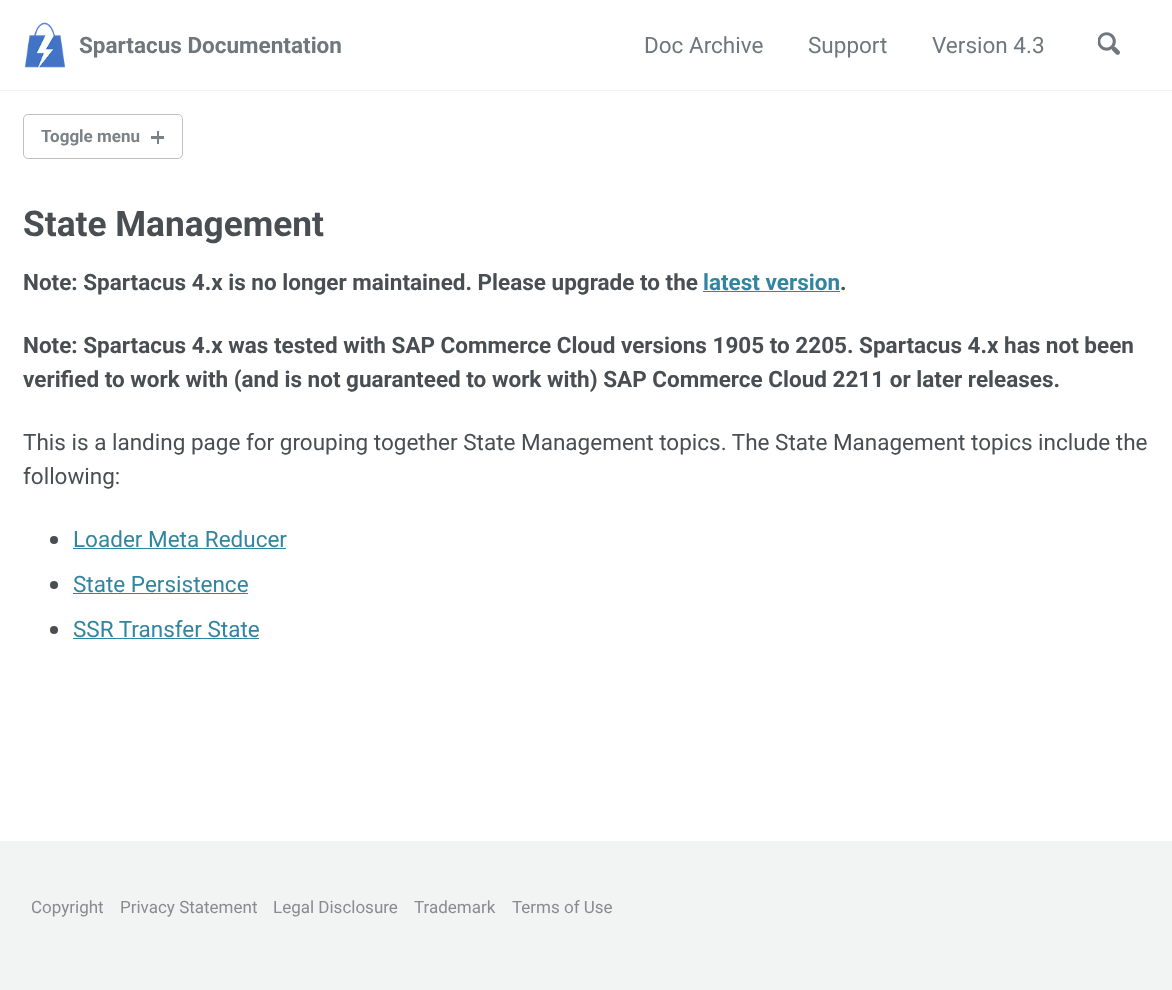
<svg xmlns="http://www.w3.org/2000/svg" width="1172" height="990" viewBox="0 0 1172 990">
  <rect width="100%" height="100%" fill="#ffffff"/>
  <rect x="0" y="90" width="1172" height="1" fill="#f2f3f3"/>
  <image x="24" y="22" width="42" height="46" href="img1.png"/>
  <text x="79" y="53" font-family="Roboto" font-size="22.5" font-weight="bold" fill="#6f777d">Spartacus Documentation</text>
  <text x="644" y="53" font-family="Roboto" font-size="22.5" fill="#6f777d">Doc Archive</text>
  <text x="808" y="53" font-family="Roboto" font-size="22.5" fill="#6f777d">Support</text>
  <text x="932" y="53" font-family="Roboto" font-size="22.5" fill="#6f777d">Version 4.3</text>
  <image x="1098" y="32" width="22" height="23" href="img2.png"/>
  <rect x="23.5" y="114.5" width="159" height="44" rx="4.5" fill="none" stroke="#bdc1c4"/>
  <text x="41" y="142" font-family="Roboto" font-size="17" font-weight="bold" fill="#7a8288">Toggle menu</text>
  <rect x="151" y="136" width="13" height="3" fill="#7a8288"/>
  <rect x="157" y="131" width="2" height="13" fill="#7a8288"/>
  <text x="23" y="236" font-family="Roboto" font-size="35.25" font-weight="bold" fill="#494e52">State Management</text>
  <text x="23" y="290" font-family="Roboto" font-size="22.5" font-weight="bold" fill="#494e52">Note: Spartacus 4.x is no longer maintained. Please upgrade to the</text>
  <text x="703" y="290" font-family="Roboto" font-size="22.5" font-weight="bold" fill="#32859e">latest version</text>
  <text x="840" y="290" font-family="Roboto" font-size="22.5" font-weight="bold" fill="#494e52">.</text>
  <rect x="703" y="291" width="137" height="1" fill="#32859e"/>
  <text x="23" y="353" font-family="Roboto" font-size="22.5" font-weight="bold" fill="#494e52">Note: Spartacus 4.x was tested with SAP Commerce Cloud versions 1905 to 2205. Spartacus 4.x has not been</text>
  <text x="23" y="387" font-family="Roboto" font-size="22.5" font-weight="bold" fill="#494e52">verified to work with (and is not guaranteed to work with) SAP Commerce Cloud 2211 or later releases.</text>
  <text x="23" y="450" font-family="Roboto" font-size="22.5" fill="#494e52">This is a landing page for grouping together State Management topics. The State Management topics include the</text>
  <text x="23" y="484" font-family="Roboto" font-size="22.5" fill="#494e52">following:</text>
  <circle cx="54" cy="540" r="4" fill="#494e52"/>
  <text x="73" y="547" font-family="Roboto" font-size="22.5" fill="#32859e">Loader Meta Reducer</text>
  <rect x="73" y="548" width="213" height="1" fill="#32859e"/>
  <circle cx="54" cy="585" r="4" fill="#494e52"/>
  <text x="73" y="592" font-family="Roboto" font-size="22.5" fill="#32859e">State Persistence</text>
  <rect x="73" y="593" width="175" height="1" fill="#32859e"/>
  <circle cx="54" cy="630" r="4" fill="#494e52"/>
  <text x="73" y="637" font-family="Roboto" font-size="22.5" fill="#32859e">SSR Transfer State</text>
  <rect x="73" y="638" width="186" height="1" fill="#32859e"/>
  <rect x="0" y="841" width="1172" height="149" fill="#f2f3f3"/>
  <text x="31" y="913" font-family="Roboto" font-size="17" fill="#898c8f">Copyright</text>
  <text x="120" y="913" font-family="Roboto" font-size="17" fill="#898c8f">Privacy Statement</text>
  <text x="273" y="913" font-family="Roboto" font-size="17" fill="#898c8f">Legal Disclosure</text>
  <text x="414" y="913" font-family="Roboto" font-size="17" fill="#898c8f">Trademark</text>
  <text x="512" y="913" font-family="Roboto" font-size="17" fill="#898c8f">Terms of Use</text>
</svg>
